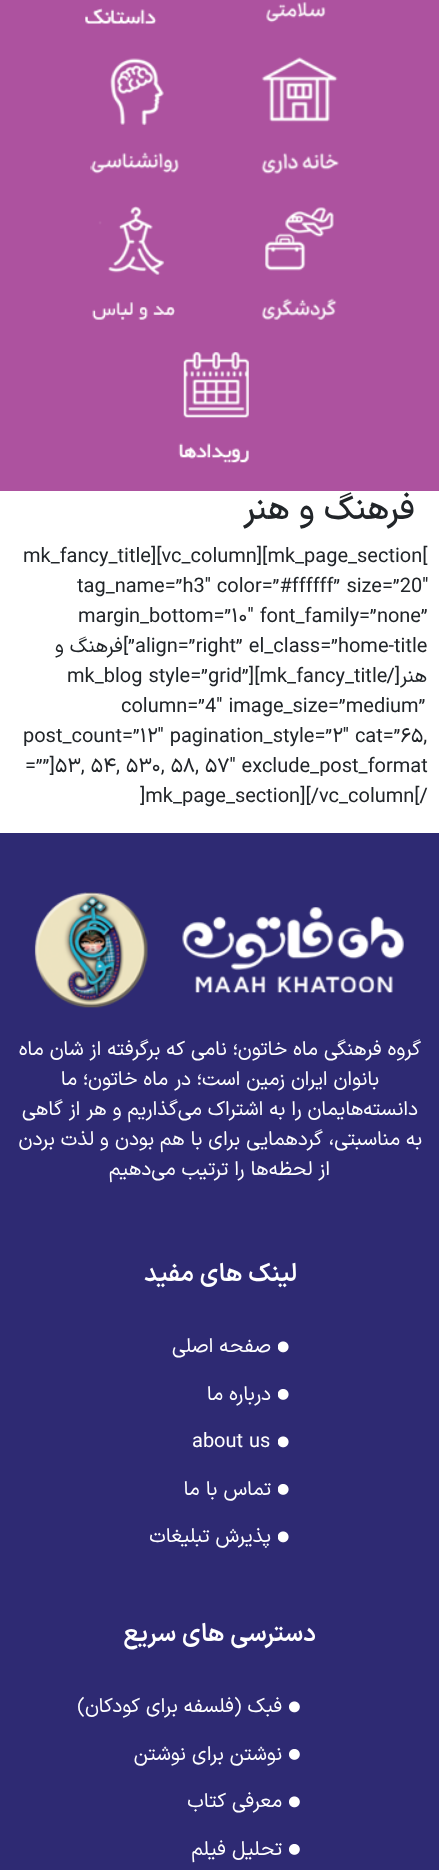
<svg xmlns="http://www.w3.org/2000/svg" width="439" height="1870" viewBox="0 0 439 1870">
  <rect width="100%" height="100%" fill="#ffffff"/>
  <rect x="0" y="0" width="439" height="491" fill="#ad529f"/>
  <image x="266" y="1" width="60" height="22" href="img1.png"/>
  <image x="85" y="8" width="72" height="17" href="img2.png"/>
  <image x="261" y="57" width="78" height="117" href="img3.png"/>
  <image x="90" y="58" width="89" height="116" href="img4.png"/>
  <image x="261" y="207" width="76" height="113" href="img5.png"/>
  <image x="92" y="206" width="83" height="114" href="img6.png"/>
  <image x="178" y="352" width="71" height="111" href="img7.png"/>
  <text x="415" y="519" font-family="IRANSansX" font-size="34" font-weight="500" direction="rtl" fill="#212529">فرهنگ و هنر</text>
  <text x="23" y="562" font-family="IRANSansX" font-size="20" fill="#212529">mk_fancy_title][vc_column][mk_page_section[</text>
  <text x="77" y="592" font-family="IRANSansX" font-size="20" fill="#212529">tag_name=”h3″ color=”#ffffff” size=”20″</text>
  <text x="78" y="622" font-family="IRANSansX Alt" font-size="20" fill="#212529">margin_bottom=”10″ font_family=”none”</text>
  <text x="135" y="652" font-family="IRANSansX" font-size="20" fill="#212529">align=”right” el_class=”home-title</text>
  <text x="135" y="652" font-family="IRANSansX" font-size="20" direction="rtl" fill="#212529">”]فرهنگ و</text>
  <text x="427" y="682" font-family="IRANSansX" font-size="20" direction="rtl" fill="#212529">هنر[/</text>
  <text x="67" y="682" font-family="IRANSansX" font-size="20" fill="#212529">mk_blog style=”grid”][mk_fancy_title</text>
  <text x="121" y="712" font-family="IRANSansX" font-size="20" fill="#212529">column=”4″ image_size=”medium”</text>
  <text x="23" y="742" font-family="IRANSansX Alt" font-size="20" fill="#212529">post_count=”12″ pagination_style=”2″ cat=”65,</text>
  <text x="55" y="772" font-family="IRANSansX Alt" font-size="20" fill="#212529">53, 54, 530, 58, 57″ exclude_post_format</text>
  <text x="25" y="772" font-family="IRANSansX" font-size="20" fill="#212529">=””]</text>
  <text x="140" y="802" font-family="IRANSansX" font-size="20" fill="#212529">]mk_page_section][/vc_column[/</text>
  <rect x="0" y="833" width="439" height="1037" fill="#2e2a73"/>
  <image x="34" y="892" width="370" height="116" href="img8.png"/>
  <text x="421" y="1055" font-family="IRANSansX" font-size="20" direction="rtl" fill="#ffffff">گروه فرهنگی ماه خاتون؛ نامی که برگرفته از شان ماه</text>
  <text x="379" y="1085" font-family="IRANSansX" font-size="20" direction="rtl" fill="#ffffff">بانوان ایران زمین است؛ در ماه خاتون؛ ما</text>
  <text x="418" y="1115" font-family="IRANSansX" font-size="20" direction="rtl" fill="#ffffff">دانسته‌هایمان را به اشتراک می‌گذاریم و هر از گاهی</text>
  <text x="422" y="1145" font-family="IRANSansX" font-size="20" direction="rtl" fill="#ffffff">به مناسبتی، گردهمایی برای با هم بودن و لذت بردن</text>
  <text x="330" y="1175" font-family="IRANSansX" font-size="20" direction="rtl" fill="#ffffff">از لحظه‌ها را ترتیب می‌دهیم</text>
  <text x="297" y="1281" font-family="IRANSansX" font-size="25" font-weight="600" direction="rtl" fill="#ffffff">لینک های مفید</text>
  <image x="278" y="1341" width="11" height="12" href="img9.png"/>
  <text x="271" y="1352" font-family="IRANSansX" font-size="20" direction="rtl" fill="#ffffff">صفحه اصلی</text>
  <image x="278" y="1389" width="11" height="11" href="img10.png"/>
  <text x="271" y="1400" font-family="IRANSansX" font-size="20" direction="rtl" fill="#ffffff">درباره ما</text>
  <image x="278" y="1436" width="11" height="12" href="img9.png"/>
  <text x="192" y="1447" font-family="IRANSansX" font-size="20" fill="#ffffff">about us</text>
  <image x="278" y="1484" width="11" height="11" href="img10.png"/>
  <text x="271" y="1495" font-family="IRANSansX" font-size="20" direction="rtl" fill="#ffffff">تماس با ما</text>
  <image x="278" y="1531" width="11" height="12" href="img9.png"/>
  <text x="271" y="1542" font-family="IRANSansX" font-size="20" direction="rtl" fill="#ffffff">پذیرش تبلیغات</text>
  <text x="316" y="1641" font-family="IRANSansX" font-size="25" font-weight="600" direction="rtl" fill="#ffffff">دسترسی های سریع</text>
  <image x="289" y="1701" width="11" height="12" href="img11.png"/>
  <text x="282" y="1712" font-family="IRANSansX" font-size="20" direction="rtl" fill="#ffffff">فبک (فلسفه برای کودکان)</text>
  <image x="289" y="1749" width="11" height="11" href="img12.png"/>
  <text x="282" y="1760" font-family="IRANSansX" font-size="20" direction="rtl" fill="#ffffff">نوشتن برای نوشتن</text>
  <image x="289" y="1796" width="11" height="12" href="img11.png"/>
  <text x="282" y="1807" font-family="IRANSansX" font-size="20" direction="rtl" fill="#ffffff">معرفی کتاب</text>
  <image x="289" y="1844" width="11" height="11" href="img12.png"/>
  <text x="282" y="1855" font-family="IRANSansX" font-size="20" direction="rtl" fill="#ffffff">تحلیل فیلم</text>
</svg>
